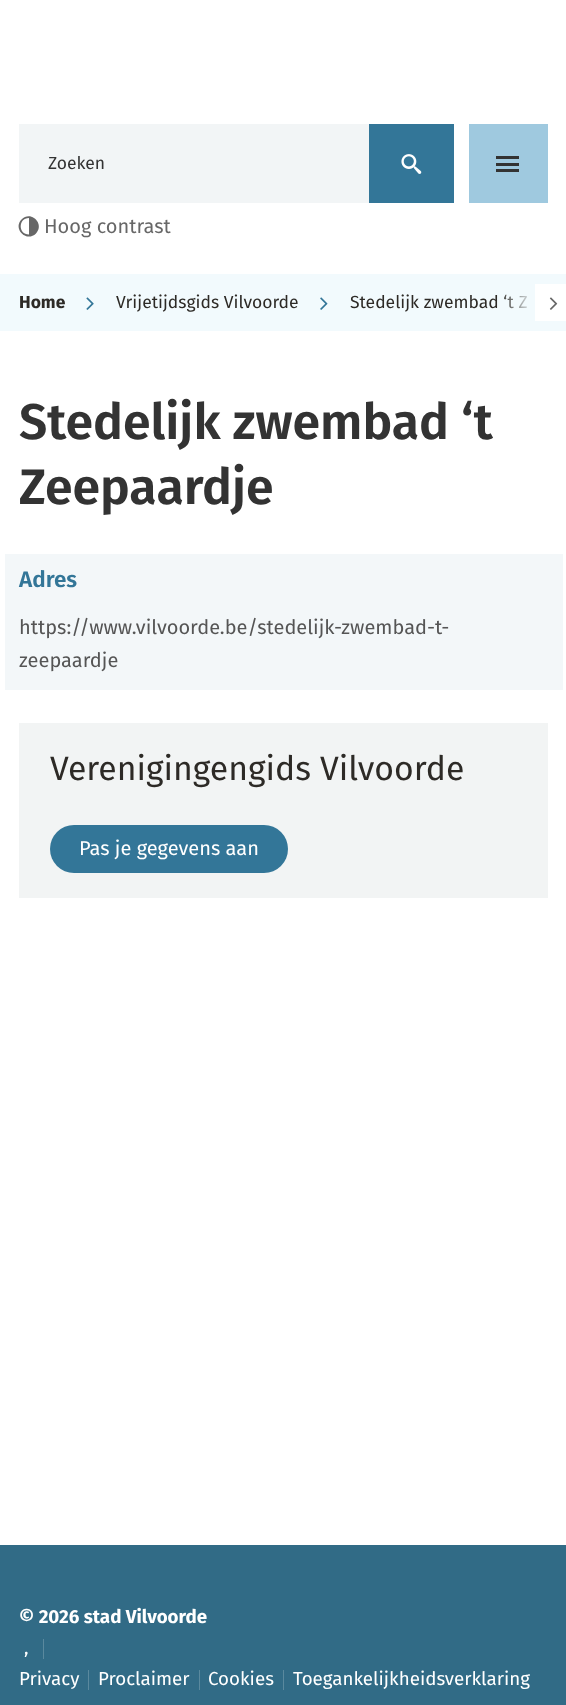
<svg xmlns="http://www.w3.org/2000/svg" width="566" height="1705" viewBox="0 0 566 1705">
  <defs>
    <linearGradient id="g1" gradientUnits="userSpaceOnUse" x1="498" y1="303" x2="535" y2="303"><stop offset="0" stop-color="#f2fafd" stop-opacity="0"/><stop offset="1" stop-color="#f2fafd"/></linearGradient>
  </defs>
  <rect width="100%" height="100%" fill="#ffffff"/>
  <rect x="19" y="124" width="350" height="79" fill="#f2f5f6"/>
  <text x="48" y="169" font-family="Fira Sans" font-size="17.5" fill="#333333">Zoeken</text>
  <rect x="369" y="124" width="85" height="79" fill="#337698"/>
  <image x="401" y="154" width="21" height="20" href="img1.png"/>
  <rect x="469" y="124" width="79" height="79" fill="#9fc9df"/>
  <rect x="496" y="163" width="23" height="3" fill="#333333"/>
  <rect x="496" y="156" width="23" height="3" fill="#333333"/>
  <rect x="496" y="169" width="23" height="3" fill="#333333"/>
  <path d="M21.5 219.5C12.5 228.5 26.5 243 36 233.5C45 224 31 210 21.5 219.5ZM29 234.5C18 234.5 18 218 29 218Z" fill="#676767"/>
  <text x="44" y="233" font-family="Fira Sans" font-size="20" fill="#676767">Hoog contrast</text>
  <rect x="0" y="274" width="566" height="57" fill="#f2fafd"/>
  <text x="19" y="308" font-family="Fira Sans" font-size="17.5" font-weight="bold" fill="#2d2a26">Home</text>
  <image x="86" y="297" width="8" height="13" href="img2.png"/>
  <text x="116" y="308" font-family="Fira Sans" font-size="17.5" fill="#2d2a26">Vrijetijdsgids Vilvoorde</text>
  <image x="320" y="297" width="8" height="13" href="img3.png"/>
  <text x="350" y="308" font-family="Fira Sans" font-size="17.5" fill="#2d2a26">Stedelijk zwembad ‘t Z</text>
  <rect x="535" y="284" width="31" height="37" fill="#ffffff"/>
  <rect x="504" y="294" width="23" height="15" fill="url(#g1)"/>
  <image x="549" y="297" width="9" height="13" href="img4.png"/>
  <text x="19" y="439" font-family="Fira Sans" font-size="50" font-weight="600" fill="#333333">Stedelijk zwembad ‘t</text>
  <text x="19" y="504" font-family="Fira Sans" font-size="50" font-weight="600" fill="#333333">Zeepaardje</text>
  <rect x="5" y="554" width="558" height="136" fill="#f3f7f9"/>
  <text x="19" y="587" font-family="Fira Sans" font-size="22.5" font-weight="600" fill="#337698">Adres</text>
  <text x="19" y="634" font-family="Fira Sans" font-size="20" fill="#555555">https://www.vilvoorde.be/stedelijk-zwembad-t-</text>
  <text x="19" y="667" font-family="Fira Sans" font-size="20" fill="#555555">zeepaardje</text>
  <rect x="19" y="723" width="529" height="175" fill="#f2f4f4"/>
  <text x="50" y="780" font-family="Fira Sans" font-size="33.75" fill="#2d2a26">Verenigingengids Vilvoorde</text>
  <rect x="50" y="825" width="238" height="48" rx="24" fill="#337698"/>
  <text x="79" y="855" font-family="Fira Sans" font-size="20" fill="#ffffff">Pas je gegevens aan</text>
  <rect x="0" y="1545" width="566" height="160" fill="#316b86"/>
  <text x="19" y="1623" font-family="Fira Sans" font-size="18.75" font-weight="bold" fill="#ffffff">© 2026 stad Vilvoorde</text>
  <text x="24" y="1654" font-family="Fira Sans" font-size="18.75" fill="#ffffff">,</text>
  <rect x="43" y="1639" width="1" height="20" fill="#5a899e"/>
  <text x="19" y="1685" font-family="Fira Sans" font-size="18.75" fill="#ffffff">Privacy</text>
  <rect x="88" y="1670" width="1" height="20" fill="#5a899e"/>
  <text x="98" y="1685" font-family="Fira Sans" font-size="18.75" fill="#ffffff">Proclaimer</text>
  <rect x="199" y="1670" width="1" height="20" fill="#5a899e"/>
  <text x="208" y="1685" font-family="Fira Sans" font-size="18.75" fill="#ffffff">Cookies</text>
  <rect x="283" y="1670" width="1" height="20" fill="#5a899e"/>
  <text x="293" y="1685" font-family="Fira Sans" font-size="18.75" fill="#ffffff">Toegankelijkheidsverklaring</text>
</svg>
